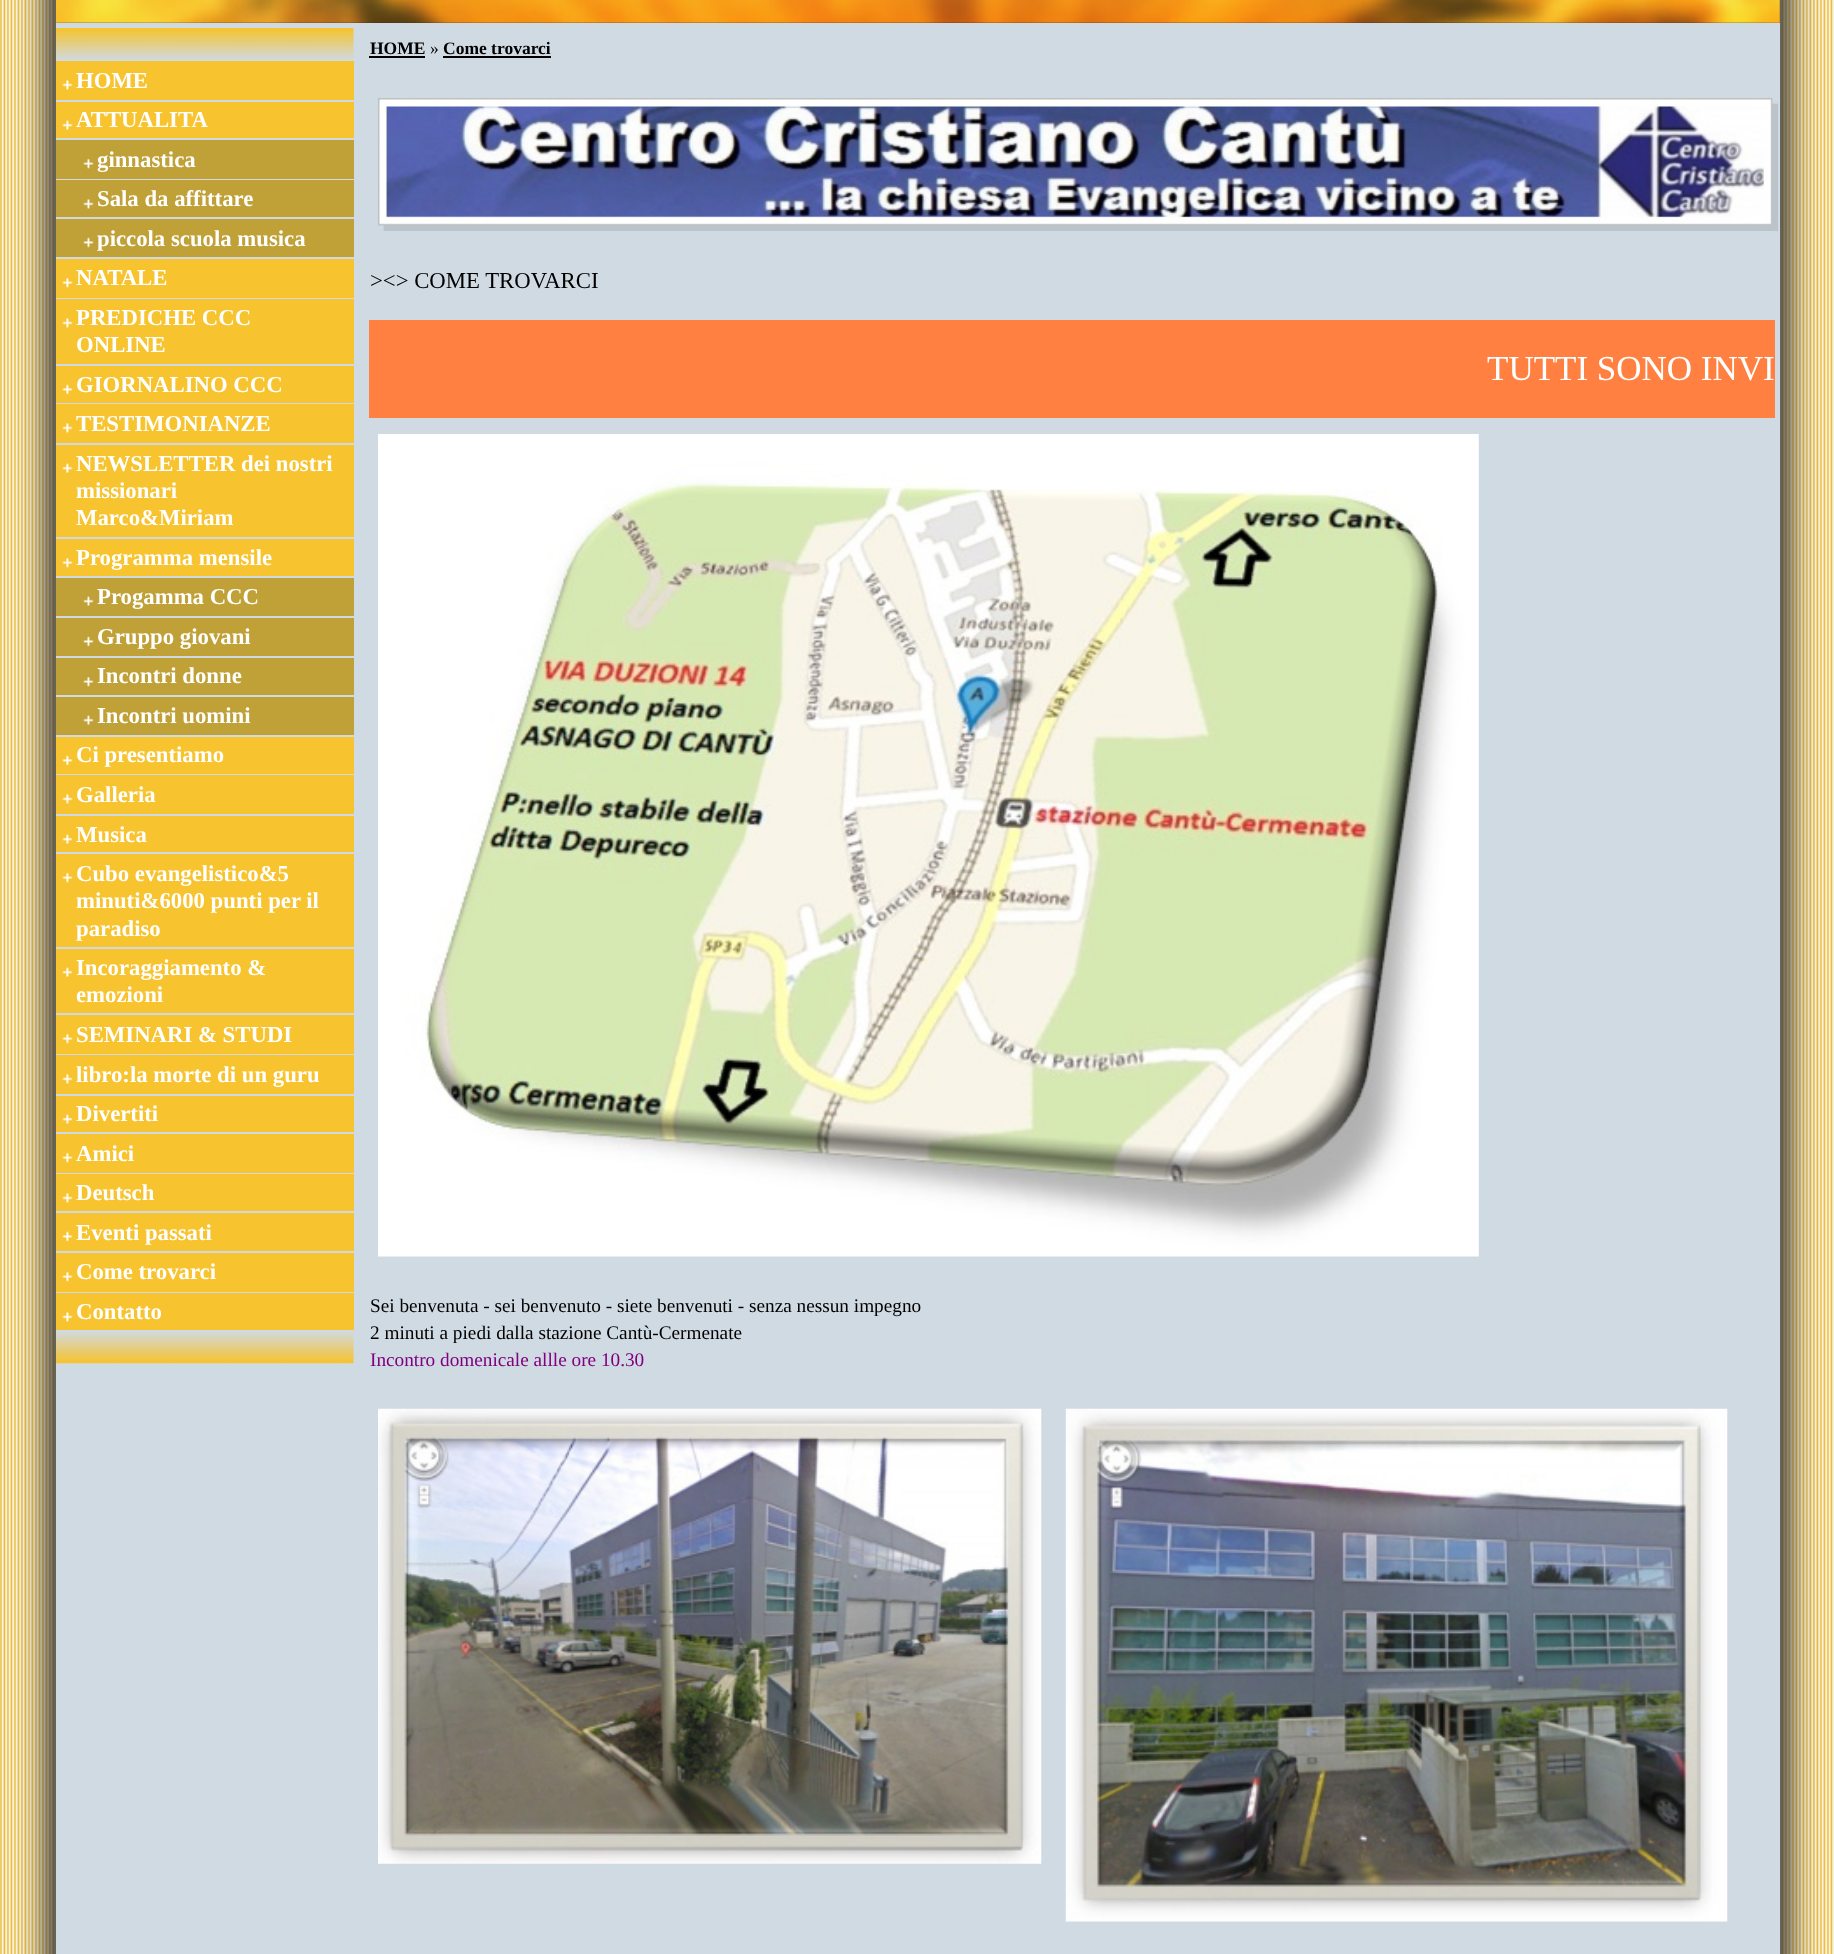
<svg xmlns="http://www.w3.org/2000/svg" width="1834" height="1954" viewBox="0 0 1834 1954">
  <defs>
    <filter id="blur1" x="-50%" y="-200%" width="200%" height="500%"><feGaussianBlur stdDeviation="17.5"/></filter>
  </defs>
  <rect width="100%" height="100%" fill="#eab938"/>
  <image x="0" y="0" width="1834" height="1954" href="img1.png"/>
  <rect x="58" y="-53" width="1724" height="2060" fill="#333333" filter="url(#blur1)"/>
  <rect x="54" y="-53" width="1724" height="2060" fill="#333333" filter="url(#blur1)"/>
  <image x="56" y="0" width="1724" height="23" href="img2.png"/>
  <rect x="56" y="23" width="1724" height="1931" fill="#d0dae3"/>
  <image x="56" y="28" width="298" height="32" href="img3.png"/>
  <rect x="56" y="61" width="298" height="39" fill="#f7c32f"/>
  <image x="62" y="80" width="11" height="10" href="img4.png"/>
  <text x="76" y="88" font-family="Liberation Serif" font-size="22.75" font-weight="bold" fill="#ffffff">HOME</text>
  <rect x="56" y="102" width="298" height="36" fill="#f7c32f"/>
  <image x="62" y="120" width="11" height="10" href="img5.png"/>
  <text x="76" y="127" font-family="Liberation Serif" font-size="22.75" font-weight="bold" fill="#ffffff">ATTUALITA</text>
  <rect x="56" y="140" width="298" height="39" fill="#c0a137"/>
  <image x="83" y="158" width="11" height="11" href="img6.png"/>
  <text x="97" y="167" font-family="Liberation Serif" font-size="22.75" font-weight="bold" fill="#ffffff">ginnastica</text>
  <rect x="56" y="180" width="298" height="37" fill="#c0a137"/>
  <image x="83" y="199" width="11" height="10" href="img7.png"/>
  <text x="97" y="206" font-family="Liberation Serif" font-size="22.75" font-weight="bold" fill="#ffffff">Sala da affittare</text>
  <rect x="56" y="219" width="298" height="38" fill="#c0a137"/>
  <image x="83" y="237" width="11" height="11" href="img8.png"/>
  <text x="97" y="246" font-family="Liberation Serif" font-size="22.75" font-weight="bold" fill="#ffffff">piccola scuola musica</text>
  <rect x="56" y="259" width="298" height="39" fill="#f7c32f"/>
  <image x="62" y="277" width="11" height="11" href="img9.png"/>
  <text x="76" y="285" font-family="Liberation Serif" font-size="22.75" font-weight="bold" fill="#ffffff">NATALE</text>
  <rect x="56" y="299" width="298" height="65" fill="#f7c32f"/>
  <image x="62" y="318" width="11" height="10" href="img4.png"/>
  <text x="76" y="325" font-family="Liberation Serif" font-size="22.75" font-weight="bold" fill="#ffffff">PREDICHE CCC</text>
  <text x="76" y="352" font-family="Liberation Serif" font-size="22.75" font-weight="bold" fill="#ffffff">ONLINE</text>
  <rect x="56" y="366" width="298" height="37" fill="#f7c32f"/>
  <image x="62" y="384" width="11" height="11" href="img10.png"/>
  <text x="76" y="392" font-family="Liberation Serif" font-size="22.75" font-weight="bold" fill="#ffffff">GIORNALINO CCC</text>
  <rect x="56" y="404" width="298" height="39" fill="#f7c32f"/>
  <image x="62" y="423" width="11" height="10" href="img4.png"/>
  <text x="76" y="431" font-family="Liberation Serif" font-size="22.75" font-weight="bold" fill="#ffffff">TESTIMONIANZE</text>
  <rect x="56" y="445" width="298" height="92" fill="#f7c32f"/>
  <image x="62" y="463" width="11" height="10" href="img5.png"/>
  <text x="76" y="471" font-family="Liberation Serif" font-size="22.75" font-weight="bold" fill="#ffffff">NEWSLETTER dei nostri</text>
  <text x="76" y="498" font-family="Liberation Serif" font-size="22.75" font-weight="bold" fill="#ffffff">missionari</text>
  <text x="76" y="525" font-family="Liberation Serif" font-size="22.75" font-weight="bold" fill="#ffffff">Marco&amp;Miriam</text>
  <rect x="56" y="539" width="298" height="37" fill="#f7c32f"/>
  <image x="62" y="557" width="11" height="11" href="img9.png"/>
  <text x="76" y="565" font-family="Liberation Serif" font-size="22.75" font-weight="bold" fill="#ffffff">Programma mensile</text>
  <rect x="56" y="578" width="298" height="38" fill="#c0a137"/>
  <image x="83" y="596" width="11" height="10" href="img11.png"/>
  <text x="97" y="604" font-family="Liberation Serif" font-size="22.75" font-weight="bold" fill="#ffffff">Progamma CCC</text>
  <rect x="56" y="618" width="298" height="38" fill="#c0a137"/>
  <image x="83" y="636" width="11" height="11" href="img8.png"/>
  <text x="97" y="644" font-family="Liberation Serif" font-size="22.75" font-weight="bold" fill="#ffffff">Gruppo giovani</text>
  <rect x="56" y="658" width="298" height="37" fill="#c0a137"/>
  <image x="83" y="676" width="11" height="11" href="img6.png"/>
  <text x="97" y="683" font-family="Liberation Serif" font-size="22.75" font-weight="bold" fill="#ffffff">Incontri donne</text>
  <rect x="56" y="697" width="298" height="38" fill="#c0a137"/>
  <image x="83" y="715" width="11" height="10" href="img11.png"/>
  <text x="97" y="723" font-family="Liberation Serif" font-size="22.75" font-weight="bold" fill="#ffffff">Incontri uomini</text>
  <rect x="56" y="737" width="298" height="37" fill="#f7c32f"/>
  <image x="62" y="755" width="11" height="11" href="img10.png"/>
  <text x="76" y="762" font-family="Liberation Serif" font-size="22.75" font-weight="bold" fill="#ffffff">Ci presentiamo</text>
  <rect x="56" y="775" width="298" height="39" fill="#f7c32f"/>
  <image x="62" y="794" width="11" height="10" href="img4.png"/>
  <text x="76" y="802" font-family="Liberation Serif" font-size="22.75" font-weight="bold" fill="#ffffff">Galleria</text>
  <rect x="56" y="816" width="298" height="36" fill="#f7c32f"/>
  <image x="62" y="834" width="11" height="10" href="img5.png"/>
  <text x="76" y="842" font-family="Liberation Serif" font-size="22.75" font-weight="bold" fill="#ffffff">Musica</text>
  <rect x="56" y="854" width="298" height="93" fill="#f7c32f"/>
  <image x="62" y="872" width="11" height="11" href="img9.png"/>
  <text x="76" y="881" font-family="Liberation Serif" font-size="22.75" font-weight="bold" fill="#ffffff">Cubo evangelistico&amp;5</text>
  <text x="76" y="908" font-family="Liberation Serif" font-size="22.75" font-weight="bold" fill="#ffffff">minuti&amp;6000 punti per il</text>
  <text x="76" y="936" font-family="Liberation Serif" font-size="22.75" font-weight="bold" fill="#ffffff">paradiso</text>
  <rect x="56" y="949" width="298" height="64" fill="#f7c32f"/>
  <image x="62" y="967" width="11" height="10" href="img5.png"/>
  <text x="76" y="975" font-family="Liberation Serif" font-size="22.75" font-weight="bold" fill="#ffffff">Incoraggiamento &amp;</text>
  <text x="76" y="1002" font-family="Liberation Serif" font-size="22.75" font-weight="bold" fill="#ffffff">emozioni</text>
  <rect x="56" y="1015" width="298" height="39" fill="#f7c32f"/>
  <image x="62" y="1033" width="11" height="11" href="img9.png"/>
  <text x="76" y="1042" font-family="Liberation Serif" font-size="22.75" font-weight="bold" fill="#ffffff">SEMINARI &amp; STUDI</text>
  <rect x="56" y="1055" width="298" height="39" fill="#f7c32f"/>
  <image x="62" y="1074" width="11" height="10" href="img4.png"/>
  <text x="76" y="1082" font-family="Liberation Serif" font-size="22.75" font-weight="bold" fill="#ffffff">libro:la morte di un guru</text>
  <rect x="56" y="1096" width="298" height="36" fill="#f7c32f"/>
  <image x="62" y="1114" width="11" height="10" href="img5.png"/>
  <text x="76" y="1121" font-family="Liberation Serif" font-size="22.75" font-weight="bold" fill="#ffffff">Divertiti</text>
  <rect x="56" y="1134" width="298" height="39" fill="#f7c32f"/>
  <image x="62" y="1152" width="11" height="11" href="img9.png"/>
  <text x="76" y="1161" font-family="Liberation Serif" font-size="22.75" font-weight="bold" fill="#ffffff">Amici</text>
  <rect x="56" y="1174" width="298" height="37" fill="#f7c32f"/>
  <image x="62" y="1193" width="11" height="10" href="img4.png"/>
  <text x="76" y="1200" font-family="Liberation Serif" font-size="22.75" font-weight="bold" fill="#ffffff">Deutsch</text>
  <rect x="56" y="1213" width="298" height="38" fill="#f7c32f"/>
  <image x="62" y="1231" width="11" height="11" href="img10.png"/>
  <text x="76" y="1240" font-family="Liberation Serif" font-size="22.75" font-weight="bold" fill="#ffffff">Eventi passati</text>
  <rect x="56" y="1253" width="298" height="39" fill="#f7c32f"/>
  <image x="62" y="1271" width="11" height="11" href="img9.png"/>
  <text x="76" y="1279" font-family="Liberation Serif" font-size="22.75" font-weight="bold" fill="#ffffff">Come trovarci</text>
  <rect x="56" y="1293" width="298" height="37" fill="#f7c32f"/>
  <image x="62" y="1312" width="11" height="10" href="img4.png"/>
  <text x="76" y="1319" font-family="Liberation Serif" font-size="22.75" font-weight="bold" fill="#ffffff">Contatto</text>
  <image x="56" y="1331" width="298" height="33" href="img12.png"/>
  <text x="370" y="54" font-family="Liberation Serif" font-size="17.5" font-weight="bold" fill="#000000">HOME</text>
  <rect x="369" y="56" width="56" height="2" fill="#000000"/>
  <text x="430" y="54" font-family="Liberation Serif" font-size="17.5" fill="#000000">»</text>
  <text x="443" y="54" font-family="Liberation Serif" font-size="17.5" font-weight="bold" fill="#000000">Come trovarci</text>
  <rect x="443" y="56" width="108" height="2" fill="#000000"/>
  <image x="378" y="98" width="1400" height="133" href="img13.png"/>
  <text x="370" y="288" font-family="Liberation Serif" font-size="22.75" fill="#000000">&gt;&lt;&gt; COME TROVARCI</text>
  <rect x="369" y="320" width="1406" height="98" fill="#ff8040"/>
  <text x="1487" y="380" font-family="Liberation Serif" font-size="35" fill="#ffffff">TUTTI SONO INVI</text>
  <image x="378" y="434" width="1101" height="823" href="img14.png"/>
  <text x="370" y="1312" font-family="Liberation Serif" font-size="19.25" fill="#000000">Sei benvenuta - sei benvenuto - siete benvenuti - senza nessun impegno</text>
  <text x="370" y="1339" font-family="Liberation Serif" font-size="19.25" fill="#000000">2 minuti a piedi dalla stazione Cantù-Cermenate</text>
  <text x="370" y="1366" font-family="Liberation Serif" font-size="19.25" fill="#800080">Incontro domenicale allle ore 10.30</text>
  <image x="378" y="1408" width="664" height="456" href="img15.png"/>
  <image x="1065" y="1408" width="663" height="514" href="img16.png"/>
</svg>
